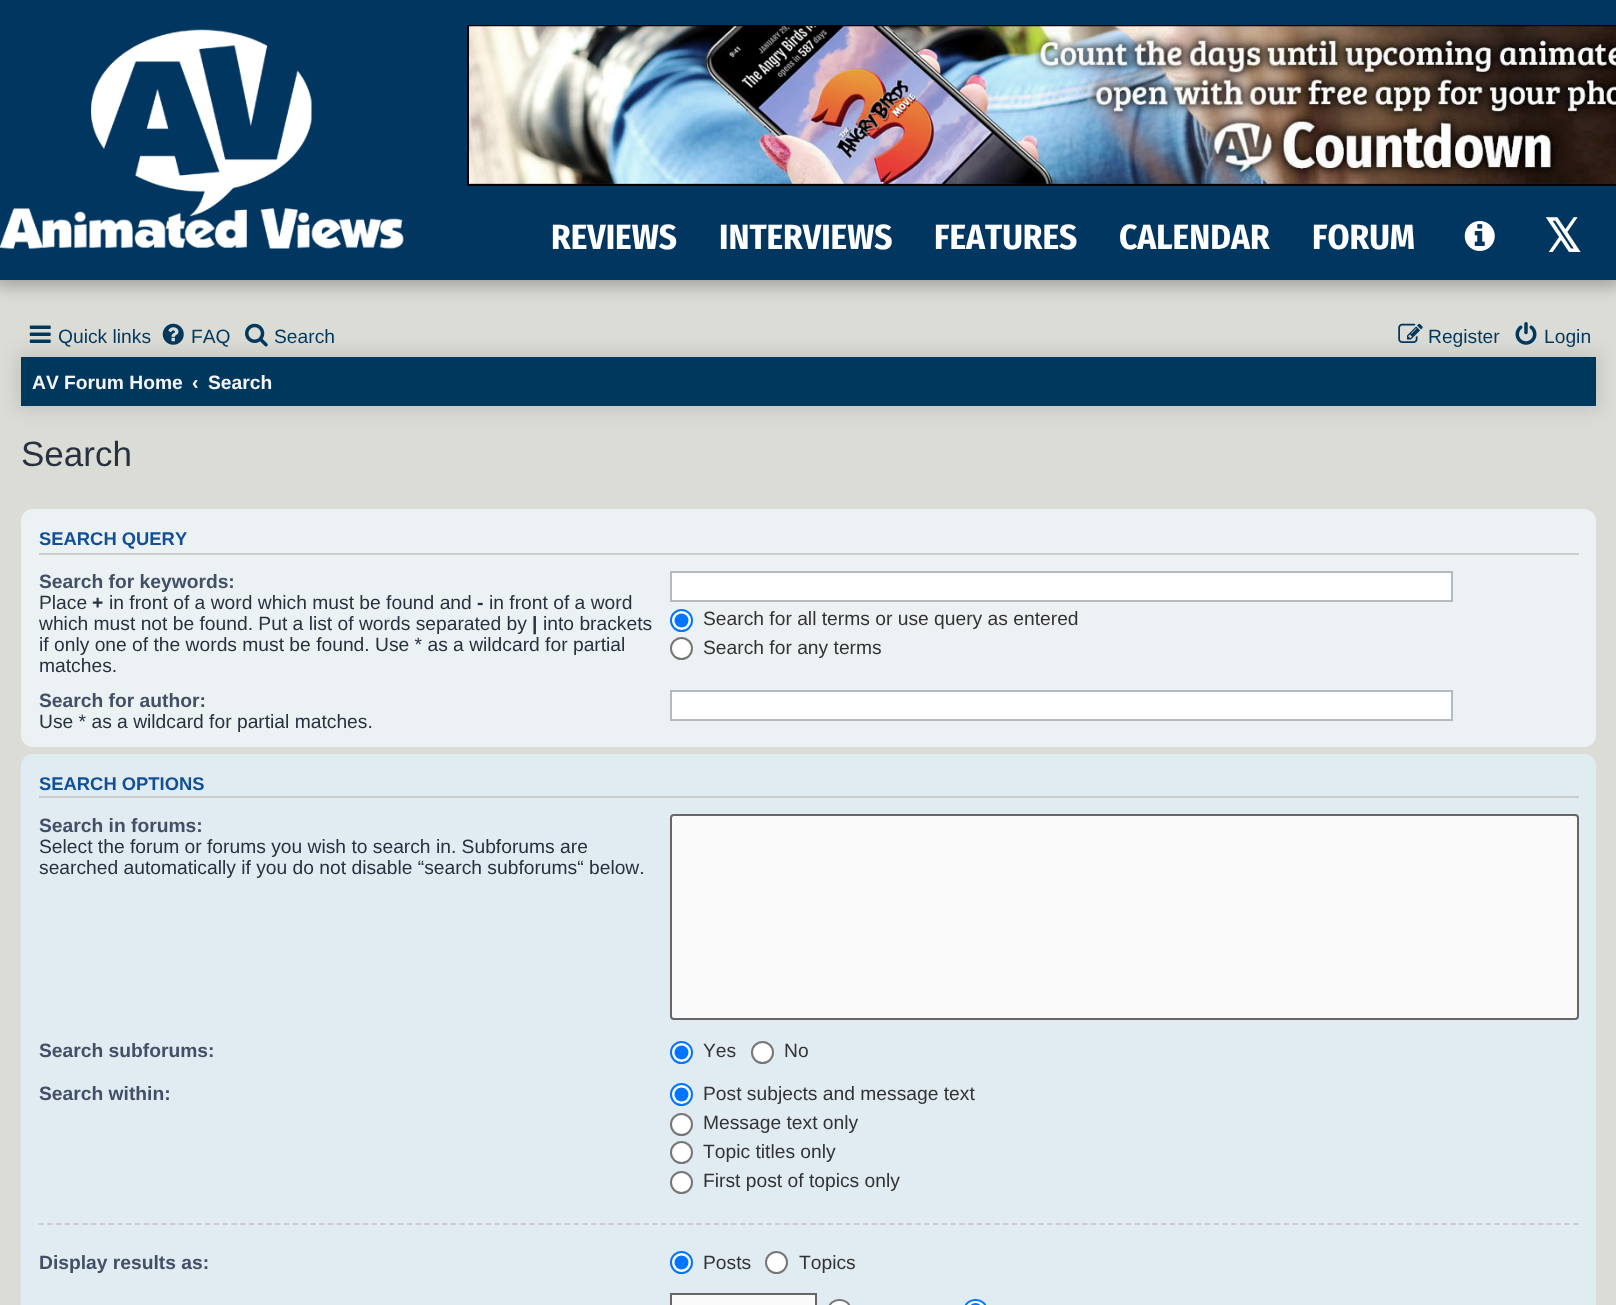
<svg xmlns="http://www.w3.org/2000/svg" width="1616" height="1305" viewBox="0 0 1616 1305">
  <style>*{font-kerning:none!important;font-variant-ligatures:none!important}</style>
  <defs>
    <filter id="blur1" x="-50%" y="-200%" width="200%" height="500%"><feGaussianBlur stdDeviation="9"/></filter>
    <clipPath id="clip1"><rect x="39" y="564" width="1540" height="119"/></clipPath>
  </defs>
  <rect width="100%" height="100%" fill="#dcdcd6"/>
  <rect x="-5" y="-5" width="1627" height="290" fill="#000000" fill-opacity="0.3" filter="url(#blur1)"/>
  <rect x="0" y="0" width="1616" height="280" fill="#00365f"/>
  <image x="0" y="29" width="404" height="220" href="img1.png"/>
  <rect x="468" y="26" width="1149" height="159" fill="none" stroke="#000000" stroke-width="2"/>
  <image x="469" y="26" width="1147" height="158" href="img2.png"/>
  <text x="551" y="249" font-family="Fira Sans Condensed" font-size="35" font-weight="bold" fill="#ffffff">REVIEWS</text>
  <text x="719" y="249" font-family="Fira Sans Condensed" font-size="35" font-weight="bold" fill="#ffffff">INTERVIEWS</text>
  <text x="934" y="249" font-family="Fira Sans Condensed" font-size="35" font-weight="bold" fill="#ffffff">FEATURES</text>
  <text x="1119" y="249" font-family="Fira Sans Condensed" font-size="35" font-weight="bold" fill="#ffffff">CALENDAR</text>
  <text x="1312" y="249" font-family="Fira Sans Condensed" font-size="35" font-weight="bold" fill="#ffffff">FORUM</text>
  <image x="1464" y="221" width="31" height="30" href="img3.png"/>
  <text x="1544" y="252" font-family="DejaVu Sans" font-size="46" font-weight="bold" fill="#ffffff">𝕏</text>
  <rect x="16" y="352" width="1585" height="59" fill="#000000" fill-opacity="0.1" filter="url(#blur1)"/>
  <image x="29" y="325" width="22" height="18" href="img4.png"/>
  <text x="58" y="343" font-family="Liberation Sans" font-size="19.25" fill="#00385d">Quick links</text>
  <image x="162" y="323" width="22" height="22" href="img5.png"/>
  <text x="191" y="343" font-family="Liberation Sans" font-size="19.25" fill="#00385d">FAQ</text>
  <image x="245" y="323" width="23" height="24" href="img6.png"/>
  <text x="274" y="343" font-family="Liberation Sans" font-size="19.25" fill="#00385d">Search</text>
  <image x="1398" y="323" width="25" height="20" href="img7.png"/>
  <text x="1428" y="343" font-family="Liberation Sans" font-size="19.25" fill="#00385d">Register</text>
  <image x="1515" y="322" width="22" height="23" href="img8.png"/>
  <text x="1544" y="343" font-family="Liberation Sans" font-size="19.25" fill="#00385d">Login</text>
  <rect x="21" y="357" width="1575" height="49" fill="#00385d"/>
  <text x="32" y="389" font-family="Liberation Sans" font-size="19.25" font-weight="bold" fill="#f4f5f8">AV Forum Home</text>
  <text x="192" y="389" font-family="Liberation Sans" font-size="19.25" font-weight="bold" fill="#ffffff">‹</text>
  <text x="208" y="389" font-family="Liberation Sans" font-size="19.25" font-weight="bold" fill="#f4f5f8">Search</text>
  <text x="21" y="466" font-family="Liberation Sans" font-size="35" fill="#28313f">Search</text>
  <rect x="21" y="509" width="1575" height="238" rx="12" fill="#ecf1f3"/>
  <rect x="39" y="553" width="1540" height="2" fill="#cccccc"/>
  <text x="39" y="545" font-family="Liberation Sans" font-size="18.4" font-weight="bold" fill="#115098">SEARCH QUERY</text>
  <text x="39" y="588" font-family="Liberation Sans" font-size="19.25" font-weight="bold" fill="#425067">Search for keywords:</text>
  <text x="39" y="609" font-family="Liberation Sans" font-size="19.25" fill="#28313f">Place</text>
  <text x="92" y="609" font-family="Liberation Sans" font-size="19.25" font-weight="bold" fill="#28313f">+</text>
  <text x="109" y="609" font-family="Liberation Sans" font-size="19.25" fill="#28313f">in front of a word which must be found and</text>
  <text x="477" y="609" font-family="Liberation Sans" font-size="19.25" font-weight="bold" fill="#28313f">-</text>
  <text x="489" y="609" font-family="Liberation Sans" font-size="19.25" fill="#28313f">in front of a word</text>
  <g clip-path="url(#clip1)">
    <text x="39" y="630" font-family="Liberation Sans" font-size="19.25" fill="#28313f">which must not be found. Put a list of words separated by</text>
  </g>
  <text x="532" y="630" font-family="Liberation Sans" font-size="19.25" font-weight="bold" fill="#28313f">|</text>
  <text x="543" y="630" font-family="Liberation Sans" font-size="19.25" fill="#28313f">into brackets</text>
  <text x="39" y="651" font-family="Liberation Sans" font-size="19.25" fill="#28313f">if only one of the words must be found. Use * as a wildcard for partial</text>
  <text x="39" y="672" font-family="Liberation Sans" font-size="19.25" fill="#28313f">matches.</text>
  <rect x="671" y="572" width="781" height="29" fill="#ffffff" stroke="#b4bac0" stroke-width="2"/>
  <circle cx="681.5" cy="620.5" r="10.5" fill="#ffffff" stroke="#0075ff" stroke-width="2"/>
  <circle cx="681.5" cy="620.5" r="7" fill="#0075ff"/>
  <text x="703" y="625" font-family="Liberation Sans" font-size="19.25" fill="#333333">Search for all terms or use query as entered</text>
  <circle cx="681.5" cy="648.5" r="10.5" fill="#ffffff" stroke="#767676" stroke-width="2"/>
  <text x="703" y="654" font-family="Liberation Sans" font-size="19.25" fill="#333333">Search for any terms</text>
  <text x="39" y="707" font-family="Liberation Sans" font-size="19.25" font-weight="bold" fill="#425067">Search for author:</text>
  <text x="39" y="728" font-family="Liberation Sans" font-size="19.25" fill="#28313f">Use * as a wildcard for partial matches.</text>
  <rect x="671" y="691" width="781" height="29" fill="#ffffff" stroke="#b4bac0" stroke-width="2"/>
  <rect x="21" y="754" width="1575" height="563" rx="12" fill="#e1ebf2"/>
  <rect x="39" y="796" width="1540" height="2" fill="#cccccc"/>
  <text x="39" y="790" font-family="Liberation Sans" font-size="18.4" font-weight="bold" fill="#115098">SEARCH OPTIONS</text>
  <text x="39" y="832" font-family="Liberation Sans" font-size="19.25" font-weight="bold" fill="#425067">Search in forums:</text>
  <text x="39" y="853" font-family="Liberation Sans" font-size="19.25" fill="#28313f">Select the forum or forums you wish to search in. Subforums are</text>
  <text x="39" y="874" font-family="Liberation Sans" font-size="19.25" fill="#28313f">searched automatically if you do not disable “search subforums“ below.</text>
  <rect x="671" y="815" width="907" height="204" rx="3" fill="#fafafa" stroke="#666666" stroke-width="2"/>
  <text x="39" y="1057" font-family="Liberation Sans" font-size="19.25" font-weight="bold" fill="#425067">Search subforums:</text>
  <circle cx="681.5" cy="1052.5" r="10.5" fill="#ffffff" stroke="#0075ff" stroke-width="2"/>
  <circle cx="681.5" cy="1052.5" r="7" fill="#0075ff"/>
  <text x="703" y="1057" font-family="Liberation Sans" font-size="19.25" fill="#333333">Yes</text>
  <circle cx="762.5" cy="1052.5" r="10.5" fill="#ffffff" stroke="#767676" stroke-width="2"/>
  <text x="784" y="1057" font-family="Liberation Sans" font-size="19.25" fill="#333333">No</text>
  <text x="39" y="1100" font-family="Liberation Sans" font-size="19.25" font-weight="bold" fill="#425067">Search within:</text>
  <circle cx="681.5" cy="1094.5" r="10.5" fill="#ffffff" stroke="#0075ff" stroke-width="2"/>
  <circle cx="681.5" cy="1094.5" r="7" fill="#0075ff"/>
  <text x="703" y="1100" font-family="Liberation Sans" font-size="19.25" fill="#333333">Post subjects and message text</text>
  <circle cx="681.5" cy="1124.5" r="10.5" fill="#ffffff" stroke="#767676" stroke-width="2"/>
  <text x="703" y="1129" font-family="Liberation Sans" font-size="19.25" fill="#333333">Message text only</text>
  <circle cx="681.5" cy="1152.5" r="10.5" fill="#ffffff" stroke="#767676" stroke-width="2"/>
  <text x="703" y="1158" font-family="Liberation Sans" font-size="19.25" fill="#333333">Topic titles only</text>
  <circle cx="681.5" cy="1182.5" r="10.5" fill="#ffffff" stroke="#767676" stroke-width="2"/>
  <text x="703" y="1187" font-family="Liberation Sans" font-size="19.25" fill="#333333">First post of topics only</text>
  <path d="M38.5 1224H1578.5" fill="none" stroke="#cccccc" stroke-width="1.8" stroke-dasharray="5.25 3.52"/>
  <text x="39" y="1269" font-family="Liberation Sans" font-size="19.25" font-weight="bold" fill="#425067">Display results as:</text>
  <circle cx="681.5" cy="1262.5" r="10.5" fill="#ffffff" stroke="#0075ff" stroke-width="2"/>
  <circle cx="681.5" cy="1262.5" r="7" fill="#0075ff"/>
  <text x="703" y="1269" font-family="Liberation Sans" font-size="19.25" fill="#333333">Posts</text>
  <circle cx="776.5" cy="1262.5" r="10.5" fill="#ffffff" stroke="#767676" stroke-width="2"/>
  <text x="799" y="1269" font-family="Liberation Sans" font-size="19.25" fill="#333333">Topics</text>
  <rect x="671" y="1294" width="145" height="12" fill="#fafafa" stroke="#666666" stroke-width="2"/>
  <rect x="829" y="1300" width="21" height="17" rx="10" fill="#ffffff" stroke="#767676" stroke-width="2"/>
  <rect x="965" y="1300" width="21" height="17" rx="10" fill="#ffffff" stroke="#0075ff" stroke-width="2"/>
  <circle cx="975.5" cy="1310" r="7" fill="#0075ff"/>
</svg>
